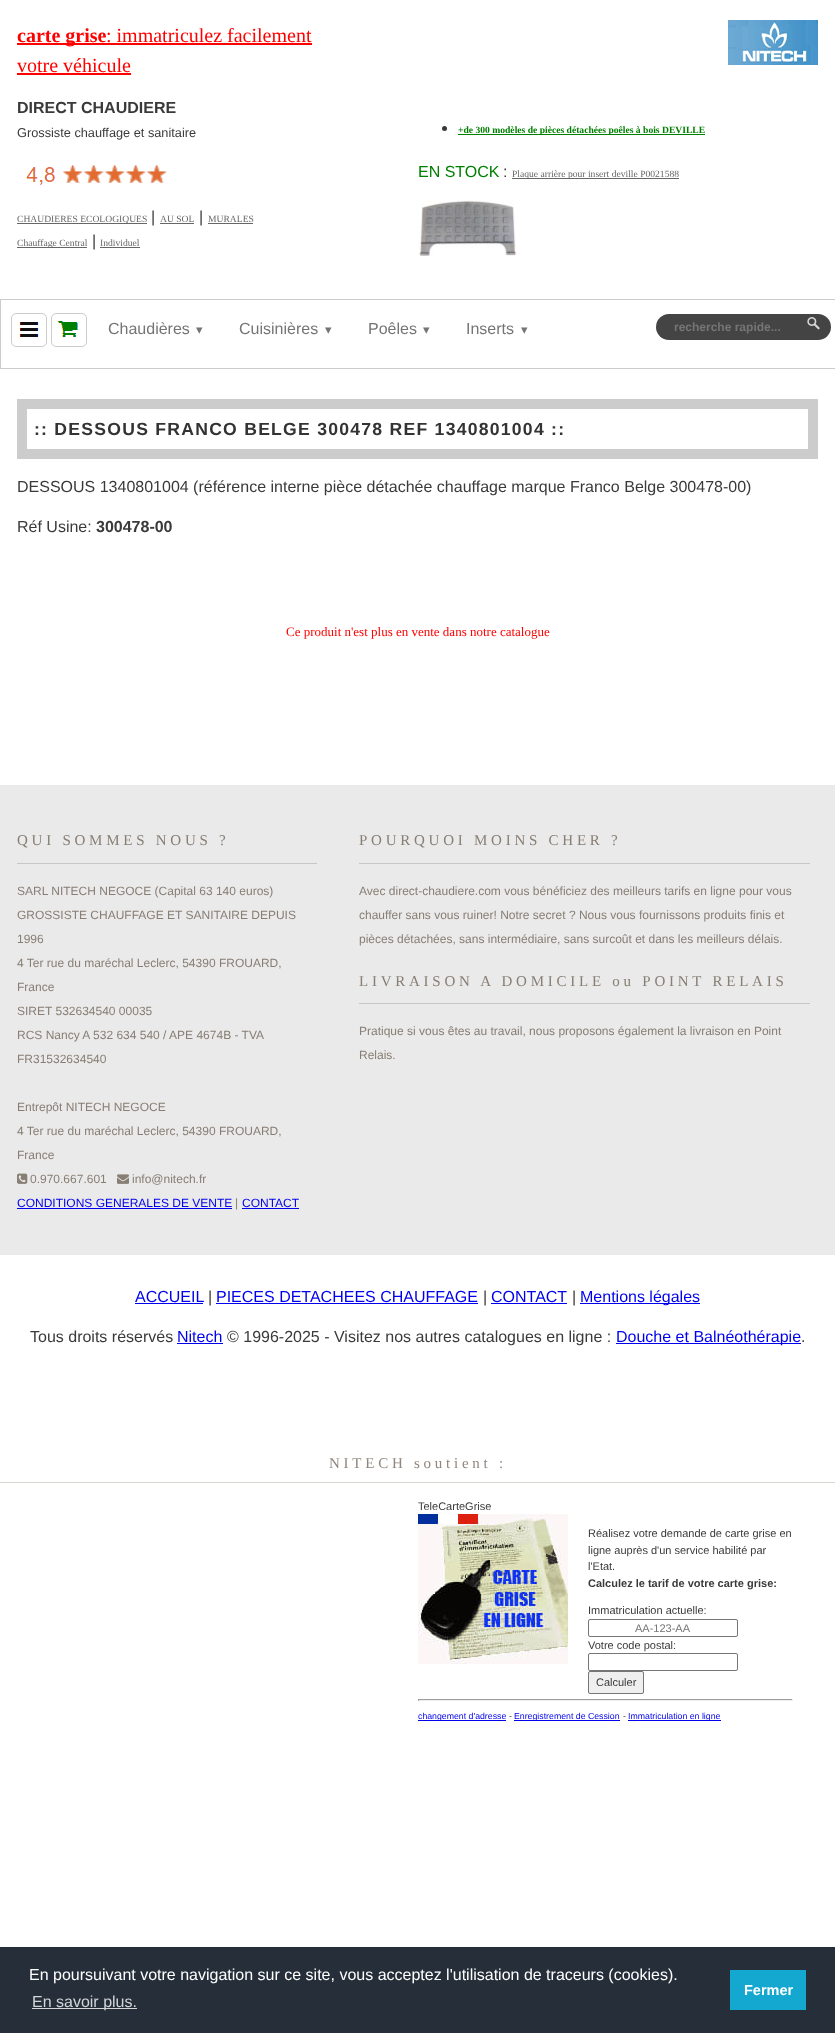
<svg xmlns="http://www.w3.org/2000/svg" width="835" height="2033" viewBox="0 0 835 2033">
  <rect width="100%" height="100%" fill="#ffffff"/>
  <image x="728" y="20" width="90" height="45" href="img1.png"/>
  <rect x="17" y="43" width="295" height="2" fill="#ff0000"/>
  <text x="17" y="42" font-family="Liberation Serif" font-size="20" font-weight="bold" fill="#ff0000">carte grise</text>
  <text x="106" y="42" font-family="Liberation Serif" font-size="20" fill="#ff0000">: immatriculez facilement</text>
  <text x="17" y="72" font-family="Liberation Serif" font-size="20" fill="#ff0000">votre véhicule</text>
  <rect x="17" y="73" width="114" height="2" fill="#ff0000"/>
  <text x="17" y="113" font-family="Liberation Sans" font-size="16" font-weight="bold" fill="#3a3a3a">DIRECT CHAUDIERE</text>
  <text x="17" y="137" font-family="Liberation Sans" font-size="12.75" fill="#3a3a3a">Grossiste chauffage et sanitaire</text>
  <image x="26" y="165" width="141" height="20" href="img2.png"/>
  <rect x="17" y="223" width="130" height="1" fill="#666666"/>
  <text x="17" y="222" font-family="Liberation Serif" font-size="9.6" fill="#666666">CHAUDIERES ECOLOGIQUES</text>
  <text x="151" y="222" font-family="Liberation Sans" font-size="16" fill="#3a3a3a">|</text>
  <text x="160" y="222" font-family="Liberation Serif" font-size="9.6" fill="#666666">AU SOL</text>
  <rect x="160" y="223" width="34" height="1" fill="#666666"/>
  <text x="199" y="222" font-family="Liberation Sans" font-size="16" fill="#3a3a3a">|</text>
  <text x="208" y="222" font-family="Liberation Serif" font-size="9.6" fill="#666666">MURALES</text>
  <rect x="208" y="223" width="45" height="1" fill="#666666"/>
  <rect x="17" y="247" width="70" height="1" fill="#666666"/>
  <text x="17" y="246" font-family="Liberation Serif" font-size="9.6" fill="#666666">Chauffage Central</text>
  <text x="92" y="246" font-family="Liberation Sans" font-size="16" fill="#3a3a3a">|</text>
  <text x="100" y="246" font-family="Liberation Serif" font-size="9.6" fill="#666666">Individuel</text>
  <rect x="100" y="247" width="40" height="1" fill="#666666"/>
  <circle cx="444.5" cy="128.5" r="2.5" fill="#3a3a3a"/>
  <rect x="458" y="134" width="247" height="1" fill="#008000"/>
  <text x="458" y="133" font-family="Liberation Serif" font-size="9.6" font-weight="bold" fill="#008000">+de 300 modèles de pièces détachées poêles à bois DEVILLE</text>
  <text x="418" y="177" font-family="Liberation Sans" font-size="16" fill="#008000">EN STOCK</text>
  <text x="503" y="177" font-family="Liberation Sans" font-size="16" fill="#3a3a3a">:</text>
  <rect x="512" y="178" width="167" height="1" fill="#666666"/>
  <text x="512" y="177" font-family="Liberation Serif" font-size="9.6" fill="#666666">Plaque arrière pour insert deville P0021588</text>
  <image x="419" y="200" width="98" height="56" href="img3.png"/>
  <rect x="0.5" y="299.5" width="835" height="69" fill="none" stroke="#cccccc"/>
  <image x="11" y="313" width="36" height="34" href="img4.png"/>
  <image x="51" y="313" width="36" height="34" href="img5.png"/>
  <text x="108" y="334" font-family="Liberation Sans" font-size="16" fill="#757575">Chaudières</text>
  <text x="196" y="334" font-family="DejaVu Sans" font-size="13" fill="#757575">▾</text>
  <text x="239" y="334" font-family="Liberation Sans" font-size="16" fill="#757575">Cuisinières</text>
  <text x="325" y="334" font-family="DejaVu Sans" font-size="13" fill="#757575">▾</text>
  <text x="368" y="334" font-family="Liberation Sans" font-size="16" fill="#757575">Poêles</text>
  <text x="423" y="334" font-family="DejaVu Sans" font-size="13" fill="#757575">▾</text>
  <text x="466" y="334" font-family="Liberation Sans" font-size="16" fill="#757575">Inserts</text>
  <text x="521" y="334" font-family="DejaVu Sans" font-size="13" fill="#757575">▾</text>
  <rect x="656" y="314" width="175" height="26" rx="13" fill="#444444"/>
  <text x="674" y="331" font-family="Liberation Sans" font-size="12" font-weight="bold" fill="#757575">recherche rapide...</text>
  <image x="807" y="317" width="13" height="13" href="img6.png"/>
  <rect x="22" y="404" width="791" height="50" fill="none" stroke="#cccccc" stroke-width="10"/>
  <text x="34" y="435" font-family="Liberation Sans" font-size="17.6" font-weight="bold" letter-spacing="1.25" fill="#333333">:: DESSOUS FRANCO BELGE 300478 REF 1340801004 ::</text>
  <text x="17" y="492" font-family="Liberation Sans" font-size="16" fill="#3a3a3a">DESSOUS 1340801004 (référence interne pièce détachée chauffage marque Franco Belge 300478-00)</text>
  <text x="17" y="532" font-family="Liberation Sans" font-size="16" fill="#3a3a3a">Réf Usine:</text>
  <text x="96" y="532" font-family="Liberation Sans" font-size="16" font-weight="bold" fill="#3a3a3a">300478-00</text>
  <text x="286" y="636" font-family="Liberation Serif" font-size="13" fill="#ff0000">Ce produit n'est plus en vente dans notre catalogue</text>
  <rect x="0" y="785" width="835" height="470" fill="#eaeaea"/>
  <rect x="17" y="863" width="300" height="1" fill="#c9c6c3"/>
  <text x="17" y="845" font-family="Liberation Serif" font-size="15" letter-spacing="3.75" fill="#877e74">QUI SOMMES NOUS ?</text>
  <text x="17" y="895" font-family="Liberation Sans" font-size="12" fill="#877e74">SARL NITECH NEGOCE (Capital 63 140 euros)</text>
  <text x="17" y="919" font-family="Liberation Sans" font-size="12" fill="#877e74">GROSSISTE CHAUFFAGE ET SANITAIRE DEPUIS</text>
  <text x="17" y="943" font-family="Liberation Sans" font-size="12" fill="#877e74">1996</text>
  <text x="17" y="967" font-family="Liberation Sans" font-size="12" fill="#877e74">4 Ter rue du maréchal Leclerc, 54390 FROUARD,</text>
  <text x="17" y="991" font-family="Liberation Sans" font-size="12" fill="#877e74">France</text>
  <text x="17" y="1015" font-family="Liberation Sans" font-size="12" fill="#877e74">SIRET 532634540 00035</text>
  <text x="17" y="1039" font-family="Liberation Sans" font-size="12" fill="#877e74">RCS Nancy A 532 634 540 / APE 4674B - TVA</text>
  <text x="17" y="1063" font-family="Liberation Sans" font-size="12" fill="#877e74">FR31532634540</text>
  <text x="17" y="1111" font-family="Liberation Sans" font-size="12" fill="#877e74">Entrepôt NITECH NEGOCE</text>
  <text x="17" y="1135" font-family="Liberation Sans" font-size="12" fill="#877e74">4 Ter rue du maréchal Leclerc, 54390 FROUARD,</text>
  <text x="17" y="1159" font-family="Liberation Sans" font-size="12" fill="#877e74">France</text>
  <image x="17" y="1173" width="11" height="11" href="img7.png"/>
  <text x="30" y="1183" font-family="Liberation Sans" font-size="12" fill="#877e74">0.970.667.601</text>
  <image x="117" y="1174" width="12" height="10" href="img8.png"/>
  <text x="132" y="1183" font-family="Liberation Sans" font-size="12" fill="#877e74">info@nitech.fr</text>
  <text x="17" y="1207" font-family="Liberation Sans" font-size="12" fill="#0000ee">CONDITIONS GENERALES DE VENTE</text>
  <rect x="17" y="1208" width="215" height="1" fill="#0000ee"/>
  <text x="235" y="1207" font-family="Liberation Sans" font-size="12" fill="#877e74">|</text>
  <text x="242" y="1207" font-family="Liberation Sans" font-size="12" fill="#0000ee">CONTACT</text>
  <rect x="242" y="1208" width="57" height="1" fill="#0000ee"/>
  <rect x="359" y="863" width="451" height="1" fill="#c9c6c3"/>
  <text x="359" y="845" font-family="Liberation Serif" font-size="15" letter-spacing="3.75" fill="#877e74">POURQUOI MOINS CHER ?</text>
  <text x="359" y="895" font-family="Liberation Sans" font-size="12" fill="#877e74">Avec direct-chaudiere.com vous bénéficiez des meilleurs tarifs en ligne pour vous</text>
  <text x="359" y="919" font-family="Liberation Sans" font-size="12" fill="#877e74">chauffer sans vous ruiner! Notre secret ? Nous vous fournissons produits finis et</text>
  <text x="359" y="943" font-family="Liberation Sans" font-size="12" fill="#877e74">pièces détachées, sans intermédiaire, sans surcoût et dans les meilleurs délais.</text>
  <rect x="359" y="1003" width="451" height="1" fill="#c9c6c3"/>
  <text x="359" y="986" font-family="Liberation Serif" font-size="15" letter-spacing="3.75" fill="#877e74">LIVRAISON A DOMICILE ou POINT RELAIS</text>
  <text x="359" y="1035" font-family="Liberation Sans" font-size="12" fill="#877e74">Pratique si vous êtes au travail, nous proposons également la livraison en Point</text>
  <text x="359" y="1059" font-family="Liberation Sans" font-size="12" fill="#877e74">Relais.</text>
  <text x="135" y="1302" font-family="Liberation Sans" font-size="16" fill="#0000ee">ACCUEIL</text>
  <rect x="135" y="1303" width="68" height="1" fill="#0000ee"/>
  <text x="208" y="1302" font-family="Liberation Sans" font-size="16" fill="#3a3a3a">|</text>
  <text x="216" y="1302" font-family="Liberation Sans" font-size="16" fill="#0000ee">PIECES DETACHEES CHAUFFAGE</text>
  <rect x="216" y="1303" width="262" height="1" fill="#0000ee"/>
  <text x="483" y="1302" font-family="Liberation Sans" font-size="16" fill="#3a3a3a">|</text>
  <text x="491" y="1302" font-family="Liberation Sans" font-size="16" fill="#0000ee">CONTACT</text>
  <rect x="491" y="1303" width="76" height="1" fill="#0000ee"/>
  <text x="572" y="1302" font-family="Liberation Sans" font-size="16" fill="#3a3a3a">|</text>
  <rect x="580" y="1303" width="120" height="1" fill="#0000ee"/>
  <text x="580" y="1302" font-family="Liberation Sans" font-size="16" fill="#0000ee">Mentions légales</text>
  <text x="30" y="1342" font-family="Liberation Sans" font-size="16" fill="#3a3a3a">Tous droits réservés</text>
  <text x="177" y="1342" font-family="Liberation Sans" font-size="16" fill="#0000ee">Nitech</text>
  <rect x="177" y="1343" width="46" height="1" fill="#0000ee"/>
  <text x="227" y="1342" font-family="Liberation Sans" font-size="16" fill="#3a3a3a">© 1996-2025 - Visitez nos autres catalogues en ligne :</text>
  <rect x="616" y="1343" width="185" height="1" fill="#0000ee"/>
  <text x="616" y="1342" font-family="Liberation Sans" font-size="16" fill="#0000ee">Douche et Balnéothérapie</text>
  <text x="801" y="1342" font-family="Liberation Sans" font-size="16" fill="#3a3a3a">.</text>
  <rect x="0" y="1482" width="835" height="1" fill="#dad7d3"/>
  <text x="329" y="1468" font-family="Liberation Serif" font-size="15" letter-spacing="3.75" fill="#8f867c">NITECH soutient :</text>
  <text x="418" y="1510" font-family="Liberation Sans" font-size="11" fill="#3a3a3a">TeleCarteGrise</text>
  <image x="418" y="1514" width="150" height="150" href="img9.png"/>
  <text x="588" y="1537" font-family="Liberation Sans" font-size="11" fill="#3a3a3a">Réalisez votre demande de carte grise en</text>
  <text x="588" y="1554" font-family="Liberation Sans" font-size="11" fill="#3a3a3a">ligne auprès d'un service habilité par</text>
  <text x="588" y="1570" font-family="Liberation Sans" font-size="11" fill="#3a3a3a">l'Etat.</text>
  <text x="588" y="1587" font-family="Liberation Sans" font-size="11" font-weight="bold" fill="#3a3a3a">Calculez le tarif de votre carte grise:</text>
  <text x="588" y="1614" font-family="Liberation Sans" font-size="11" fill="#3a3a3a">Immatriculation actuelle:</text>
  <rect x="588.5" y="1619.5" width="149" height="17" rx="1.5" fill="none" stroke="#767676"/>
  <text x="635" y="1632" font-family="Liberation Sans" font-size="11" fill="#757575">AA-123-AA</text>
  <text x="588" y="1649" font-family="Liberation Sans" font-size="11" fill="#3a3a3a">Votre code postal:</text>
  <rect x="588.5" y="1653.5" width="149" height="17" rx="1.5" fill="none" stroke="#767676"/>
  <rect x="588.5" y="1671.5" width="55" height="22" rx="1.5" fill="#efefef" stroke="#767676"/>
  <text x="596" y="1686" font-family="Liberation Sans" font-size="11" fill="#3a3a3a">Calculer</text>
  <rect x="418" y="1699" width="375" height="1" fill="#9f9f9f"/>
  <rect x="792" y="1699" width="1" height="2" fill="#eeeeee"/>
  <rect x="418" y="1700" width="375" height="1" fill="#eeeeee"/>
  <rect x="418" y="1699" width="1" height="2" fill="#9f9f9f"/>
  <rect x="418" y="1720" width="88" height="1" fill="#0000ee"/>
  <text x="418" y="1719" font-family="Liberation Sans" font-size="8.75" fill="#0000ee">changement d'adresse</text>
  <text x="509" y="1719" font-family="Liberation Sans" font-size="8.75" fill="#3a3a3a">-</text>
  <rect x="514" y="1720" width="106" height="1" fill="#0000ee"/>
  <text x="514" y="1719" font-family="Liberation Sans" font-size="8.75" fill="#0000ee">Enregistrement de Cession</text>
  <text x="623" y="1719" font-family="Liberation Sans" font-size="8.75" fill="#3a3a3a">-</text>
  <rect x="628" y="1720" width="93" height="1" fill="#0000ee"/>
  <text x="628" y="1719" font-family="Liberation Sans" font-size="8.75" fill="#0000ee">Immatriculation en ligne</text>
  <rect x="0" y="1947" width="835" height="86" fill="#252e39"/>
  <text x="29" y="1980" font-family="Liberation Sans" font-size="16" fill="#ffffff">En poursuivant votre navigation sur ce site, vous acceptez l'utilisation de traceurs (cookies).</text>
  <rect x="32" y="2008" width="105" height="1" fill="#d3d5d7"/>
  <text x="32" y="2007" font-family="Liberation Sans" font-size="16" fill="#d3d5d7">En savoir plus.</text>
  <rect x="730" y="1970" width="76" height="40" fill="#14a7d0"/>
  <text x="744" y="1995" font-family="Liberation Sans" font-size="14.5" font-weight="bold" fill="#ffffff">Fermer</text>
</svg>
